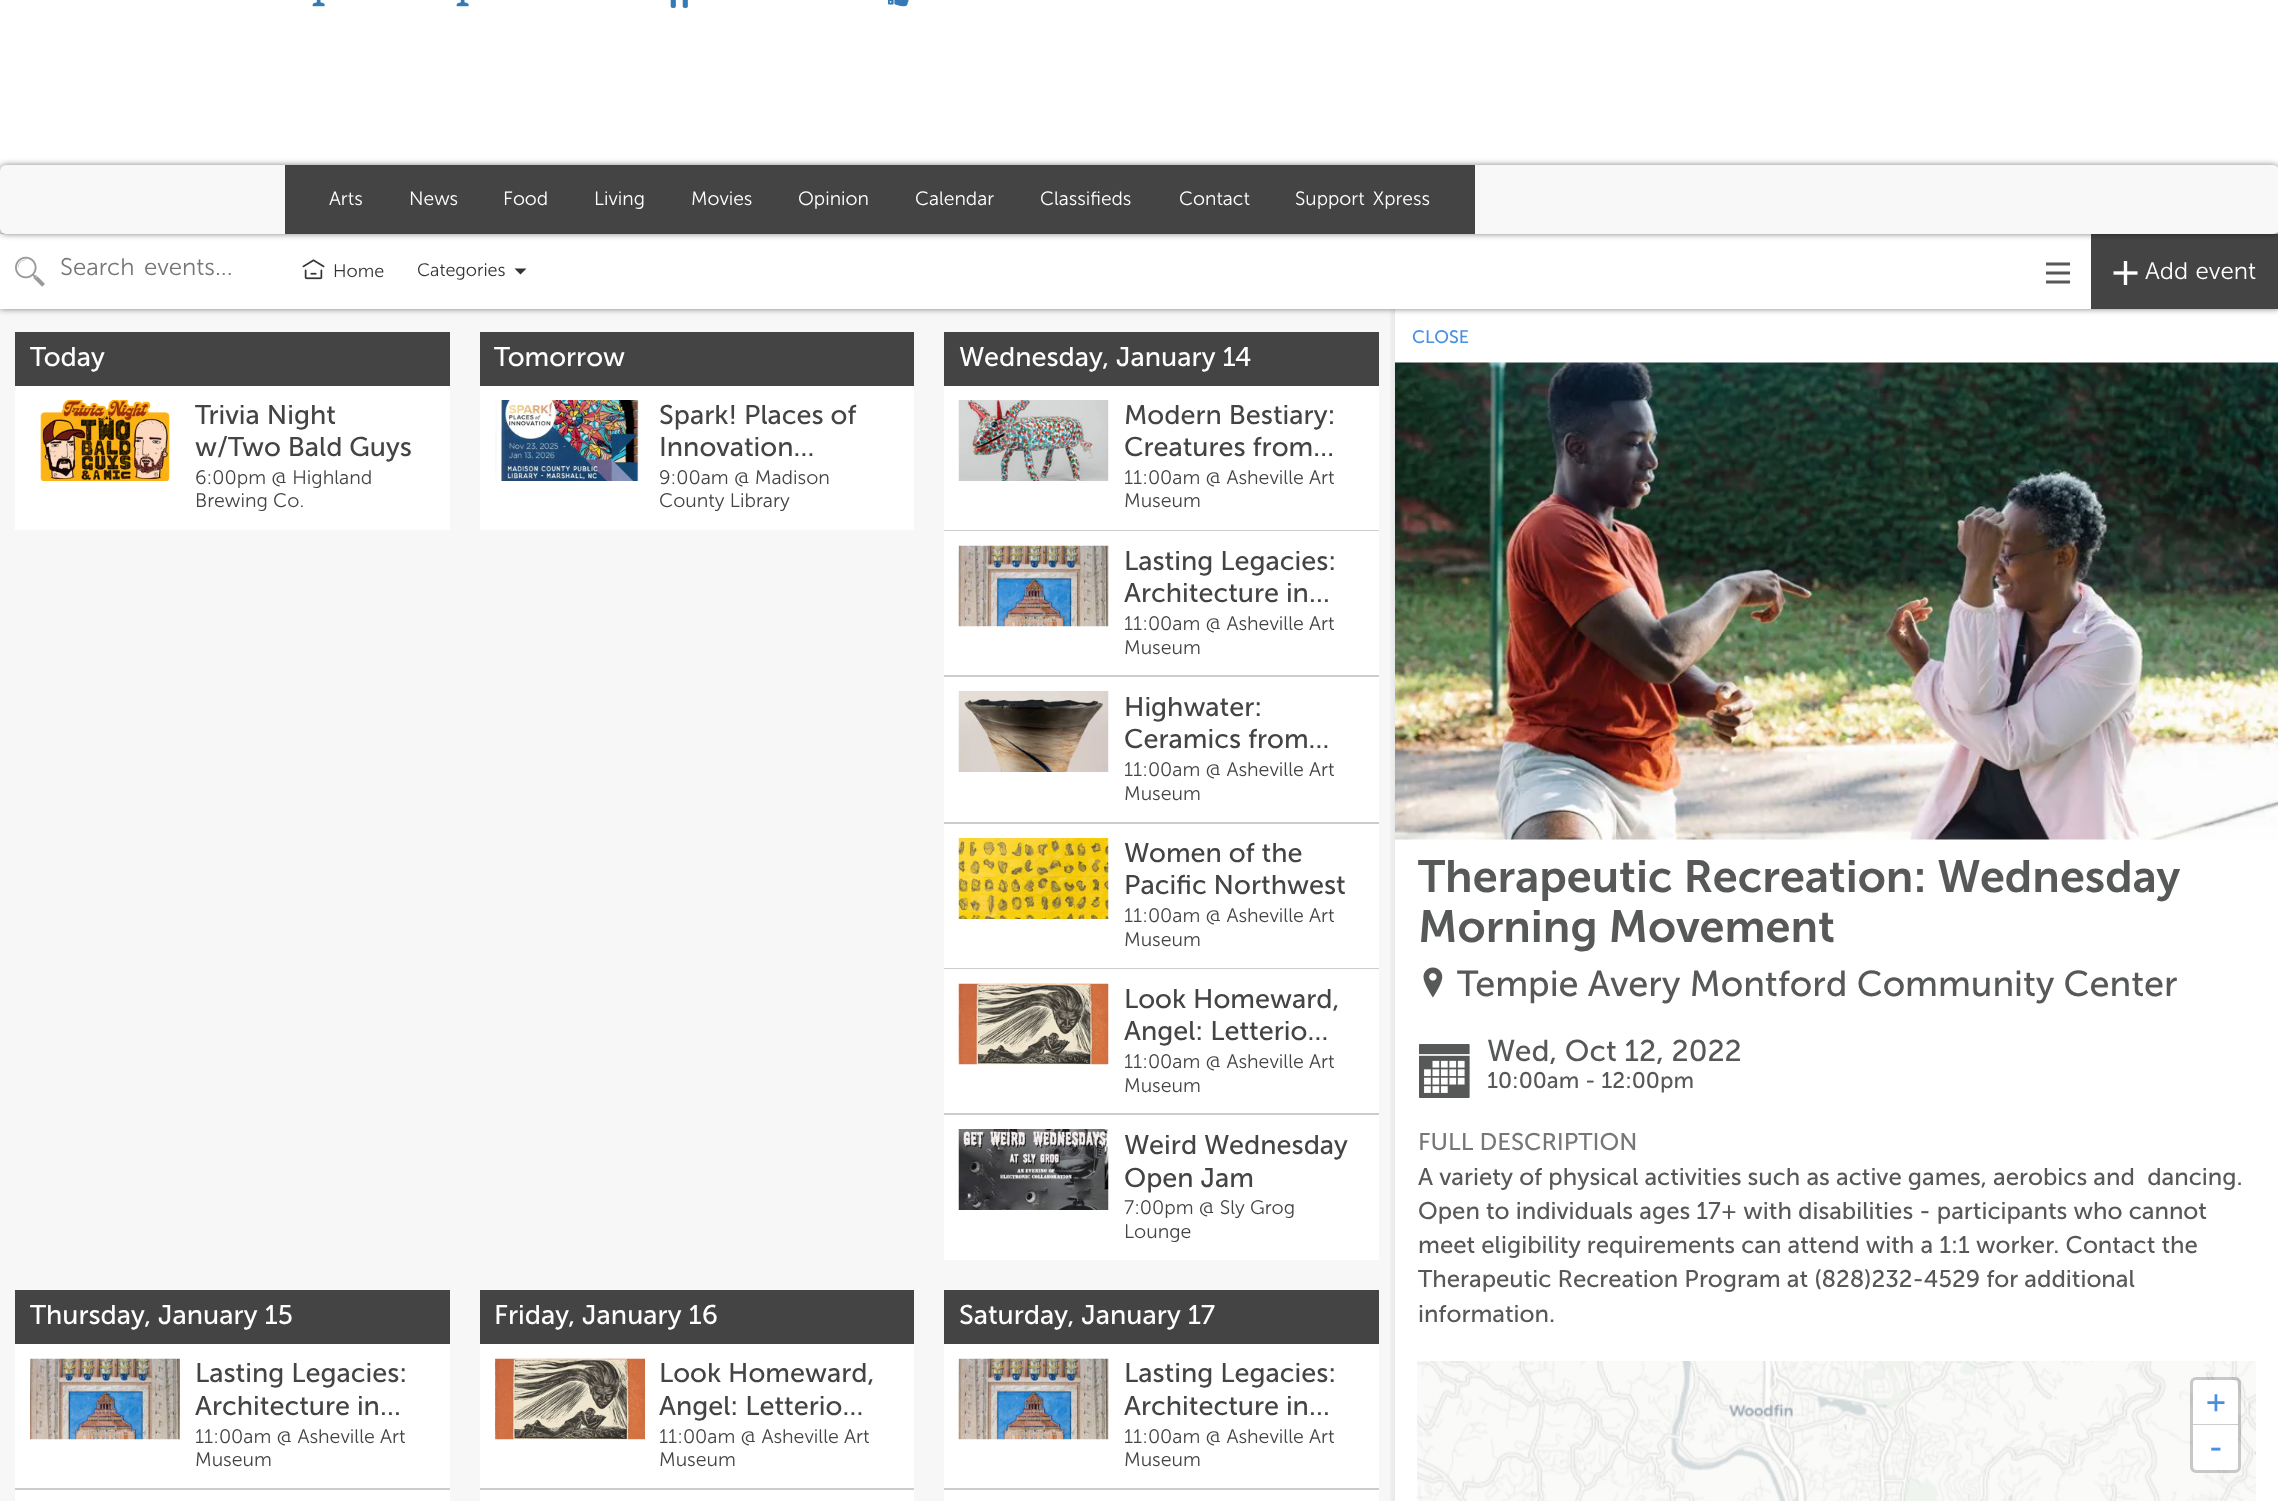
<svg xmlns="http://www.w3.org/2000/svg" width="2278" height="1501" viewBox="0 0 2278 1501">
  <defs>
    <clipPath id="clip1"><rect x="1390" y="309" width="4" height="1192"/></clipPath>
    <filter id="blur1" x="-50%" y="-200%" width="200%" height="500%"><feGaussianBlur stdDeviation="3"/></filter>
  </defs>
  <rect width="100%" height="100%" fill="#ffffff"/>
  <image x="312" y="0" width="13" height="7" href="img1.png"/>
  <image x="456" y="0" width="13" height="7" href="img1.png"/>
  <image x="670" y="0" width="18" height="8" href="img2.png"/>
  <image x="888" y="0" width="21" height="7" href="img3.png"/>
  <rect x="0" y="309" width="1394" height="1192" fill="#f7f7f7"/>
  <g clip-path="url(#clip1)">
    <rect x="1391" y="308" width="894" height="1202" fill="#000000" fill-opacity="0.06" filter="url(#blur1)"/>
  </g>
  <rect x="1394" y="309" width="1" height="1192" fill="#e8e9ea"/>
  <rect x="0" y="234" width="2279" height="75" fill="#000000" fill-opacity="0.5" filter="url(#blur1)"/>
  <rect x="0" y="234" width="2091" height="75" fill="#ffffff"/>
  <rect x="2091" y="234" width="187" height="75" fill="#444444"/>
  <rect x="0" y="165" width="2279" height="69" rx="6" fill="#000000" fill-opacity="0.5" filter="url(#blur1)"/>
  <rect x="0" y="165" width="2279" height="69" rx="6" fill="#f8f8f8"/>
  <rect x="285" y="165" width="1190" height="69" fill="#444444"/>
  <text x="329" y="205" font-family="Museo Sans" font-size="19.25" font-weight="300" fill="#ffffff">Arts</text>
  <text x="409" y="205" font-family="Museo Sans" font-size="19.25" font-weight="300" fill="#ffffff">News</text>
  <text x="503" y="205" font-family="Museo Sans" font-size="19.25" font-weight="300" fill="#ffffff">Food</text>
  <text x="594" y="205" font-family="Museo Sans" font-size="19.25" font-weight="300" fill="#ffffff">Living</text>
  <text x="691" y="205" font-family="Museo Sans" font-size="19.25" font-weight="300" fill="#ffffff">Movies</text>
  <text x="798" y="205" font-family="Museo Sans" font-size="19.25" font-weight="300" fill="#ffffff">Opinion</text>
  <text x="915" y="205" font-family="Museo Sans" font-size="19.25" font-weight="300" fill="#ffffff">Calendar</text>
  <text x="1040" y="205" font-family="Museo Sans" font-size="19.25" font-weight="300" fill="#ffffff">Classifieds</text>
  <text x="1179" y="205" font-family="Museo Sans" font-size="19.25" font-weight="300" fill="#ffffff">Contact</text>
  <text x="1295" y="205" word-spacing="3" font-family="Museo Sans" font-size="19.25" font-weight="300" fill="#ffffff">Support Xpress</text>
  <image x="15" y="256" width="30" height="31" href="img4.png"/>
  <text x="60" y="275" word-spacing="3" font-family="Museo Sans" font-size="24" font-weight="300" fill="#777777">Search events...</text>
  <image x="302" y="259" width="23" height="21" href="img5.png"/>
  <text x="333" y="277" font-family="Museo Sans" font-size="18" font-weight="300" fill="#333333">Home</text>
  <text x="417" y="276" font-family="Museo Sans" font-size="18" font-weight="300" fill="#333333">Categories</text>
  <path d="M514.5 268.5H526.5L520.5 274.5Z" fill="#333333"/>
  <image x="2046" y="262" width="24" height="22" href="img6.png"/>
  <image x="2113" y="261" width="25" height="24" href="img7.png"/>
  <text x="2145" y="279" word-spacing="1" font-family="Museo Sans" font-size="24" font-weight="300" fill="#ffffff">Add event</text>
  <rect x="15" y="332" width="435" height="54" fill="#444444"/>
  <text x="30" y="366" font-family="Museo Sans" font-size="27" fill="#ffffff">Today</text>
  <rect x="15" y="386" width="435" height="144" fill="#ffffff"/>
  <image x="40" y="400" width="130" height="81" href="img8.png"/>
  <text x="195" y="424" font-family="Museo Sans" font-size="27" fill="#444444">Trivia Night</text>
  <text x="195" y="456" font-family="Museo Sans" font-size="27" fill="#444444">w/Two Bald Guys</text>
  <text x="195" y="484" font-family="Museo Sans" font-size="19.5" font-weight="300" fill="#444444">6:00pm @ Highland</text>
  <text x="195" y="507" font-family="Museo Sans" font-size="19.5" font-weight="300" fill="#444444">Brewing Co.</text>
  <rect x="480" y="332" width="434" height="54" fill="#444444"/>
  <text x="494" y="366" font-family="Museo Sans" font-size="27" fill="#ffffff">Tomorrow</text>
  <rect x="480" y="386" width="434" height="144" fill="#ffffff"/>
  <image x="495" y="400" width="144" height="81" href="img9.png"/>
  <text x="659" y="424" font-family="Museo Sans" font-size="27" fill="#444444">Spark! Places of</text>
  <text x="659" y="456" font-family="Museo Sans" font-size="27" fill="#444444">Innovation…</text>
  <text x="659" y="484" font-family="Museo Sans" font-size="19.5" font-weight="300" fill="#444444">9:00am @ Madison</text>
  <text x="659" y="507" font-family="Museo Sans" font-size="19.5" font-weight="300" fill="#444444">County Library</text>
  <rect x="944" y="332" width="435" height="54" fill="#444444"/>
  <text x="959" y="366" font-family="Museo Sans" font-size="27" fill="#ffffff">Wednesday, January 14</text>
  <rect x="944" y="386" width="435" height="144" fill="#ffffff"/>
  <rect x="944" y="530" width="435" height="1" fill="#cccccc"/>
  <image x="958" y="400" width="151" height="81" href="img10.png"/>
  <text x="1124" y="424" font-family="Museo Sans" font-size="27" fill="#444444">Modern Bestiary:</text>
  <text x="1124" y="456" font-family="Museo Sans" font-size="27" fill="#444444">Creatures from…</text>
  <text x="1124" y="484" font-family="Museo Sans" font-size="19.5" font-weight="300" fill="#444444">11:00am @ Asheville Art</text>
  <text x="1124" y="507" font-family="Museo Sans" font-size="19.5" font-weight="300" fill="#444444">Museum</text>
  <rect x="944" y="531" width="435" height="144" fill="#ffffff"/>
  <rect x="944" y="675" width="435" height="2" fill="#cccccc"/>
  <image x="958" y="545" width="151" height="82" href="img11.png"/>
  <text x="1124" y="570" font-family="Museo Sans" font-size="27" fill="#444444">Lasting Legacies:</text>
  <text x="1124" y="602" font-family="Museo Sans" font-size="27" fill="#444444">Architecture in…</text>
  <text x="1124" y="630" font-family="Museo Sans" font-size="19.5" font-weight="300" fill="#444444">11:00am @ Asheville Art</text>
  <text x="1124" y="654" font-family="Museo Sans" font-size="19.5" font-weight="300" fill="#444444">Museum</text>
  <rect x="944" y="677" width="435" height="145" fill="#ffffff"/>
  <rect x="944" y="822" width="435" height="2" fill="#cccccc"/>
  <image x="958" y="691" width="151" height="81" href="img12.png"/>
  <text x="1124" y="716" font-family="Museo Sans" font-size="27" fill="#444444">Highwater:</text>
  <text x="1124" y="748" font-family="Museo Sans" font-size="27" fill="#444444">Ceramics from…</text>
  <text x="1124" y="776" font-family="Museo Sans" font-size="19.5" font-weight="300" fill="#444444">11:00am @ Asheville Art</text>
  <text x="1124" y="800" font-family="Museo Sans" font-size="19.5" font-weight="300" fill="#444444">Museum</text>
  <rect x="944" y="824" width="435" height="144" fill="#ffffff"/>
  <rect x="944" y="968" width="435" height="1" fill="#cccccc"/>
  <image x="958" y="838" width="151" height="81" href="img13.png"/>
  <text x="1124" y="862" font-family="Museo Sans" font-size="27" fill="#444444">Women of the</text>
  <text x="1124" y="894" font-family="Museo Sans" font-size="27" fill="#444444">Pacific Northwest</text>
  <text x="1124" y="922" font-family="Museo Sans" font-size="19.5" font-weight="300" fill="#444444">11:00am @ Asheville Art</text>
  <text x="1124" y="946" font-family="Museo Sans" font-size="19.5" font-weight="300" fill="#444444">Museum</text>
  <rect x="944" y="969" width="435" height="144" fill="#ffffff"/>
  <rect x="944" y="1113" width="435" height="2" fill="#cccccc"/>
  <image x="958" y="983" width="151" height="82" href="img14.png"/>
  <text x="1124" y="1008" font-family="Museo Sans" font-size="27" fill="#444444">Look Homeward,</text>
  <text x="1124" y="1040" font-family="Museo Sans" font-size="27" fill="#444444">Angel: Letterio…</text>
  <text x="1124" y="1068" font-family="Museo Sans" font-size="19.5" font-weight="300" fill="#444444">11:00am @ Asheville Art</text>
  <text x="1124" y="1092" font-family="Museo Sans" font-size="19.5" font-weight="300" fill="#444444">Museum</text>
  <rect x="944" y="1115" width="435" height="145" fill="#ffffff"/>
  <image x="958" y="1129" width="151" height="81" href="img15.png"/>
  <text x="1124" y="1154" font-family="Museo Sans" font-size="27" fill="#444444">Weird Wednesday</text>
  <text x="1124" y="1187" font-family="Museo Sans" font-size="27" fill="#444444">Open Jam</text>
  <text x="1124" y="1214" font-family="Museo Sans" font-size="19.5" font-weight="300" fill="#444444">7:00pm @ Sly Grog</text>
  <text x="1124" y="1238" font-family="Museo Sans" font-size="19.5" font-weight="300" fill="#444444">Lounge</text>
  <rect x="15" y="1290" width="435" height="54" fill="#444444"/>
  <text x="30" y="1324" font-family="Museo Sans" font-size="27" fill="#ffffff">Thursday, January 15</text>
  <rect x="15" y="1344" width="435" height="144" fill="#ffffff"/>
  <rect x="15" y="1488" width="435" height="2" fill="#cccccc"/>
  <image x="30" y="1358" width="150" height="82" href="img16.png"/>
  <text x="195" y="1382" font-family="Museo Sans" font-size="27" fill="#444444">Lasting Legacies:</text>
  <text x="195" y="1415" font-family="Museo Sans" font-size="27" fill="#444444">Architecture in…</text>
  <text x="195" y="1443" font-family="Museo Sans" font-size="19.5" font-weight="300" fill="#444444">11:00am @ Asheville Art</text>
  <text x="195" y="1466" font-family="Museo Sans" font-size="19.5" font-weight="300" fill="#444444">Museum</text>
  <rect x="15" y="1490" width="435" height="11" fill="#ffffff"/>
  <rect x="480" y="1290" width="434" height="54" fill="#444444"/>
  <text x="494" y="1324" font-family="Museo Sans" font-size="27" fill="#ffffff">Friday, January 16</text>
  <rect x="480" y="1344" width="434" height="144" fill="#ffffff"/>
  <rect x="480" y="1488" width="434" height="2" fill="#cccccc"/>
  <image x="495" y="1358" width="150" height="82" href="img17.png"/>
  <text x="659" y="1382" font-family="Museo Sans" font-size="27" fill="#444444">Look Homeward,</text>
  <text x="659" y="1415" font-family="Museo Sans" font-size="27" fill="#444444">Angel: Letterio…</text>
  <text x="659" y="1443" font-family="Museo Sans" font-size="19.5" font-weight="300" fill="#444444">11:00am @ Asheville Art</text>
  <text x="659" y="1466" font-family="Museo Sans" font-size="19.5" font-weight="300" fill="#444444">Museum</text>
  <rect x="480" y="1490" width="434" height="11" fill="#ffffff"/>
  <rect x="944" y="1290" width="435" height="54" fill="#444444"/>
  <text x="959" y="1324" font-family="Museo Sans" font-size="27" fill="#ffffff">Saturday, January 17</text>
  <rect x="944" y="1344" width="435" height="144" fill="#ffffff"/>
  <rect x="944" y="1488" width="435" height="2" fill="#cccccc"/>
  <image x="958" y="1358" width="151" height="82" href="img11.png"/>
  <text x="1124" y="1382" font-family="Museo Sans" font-size="27" fill="#444444">Lasting Legacies:</text>
  <text x="1124" y="1415" font-family="Museo Sans" font-size="27" fill="#444444">Architecture in…</text>
  <text x="1124" y="1443" font-family="Museo Sans" font-size="19.5" font-weight="300" fill="#444444">11:00am @ Asheville Art</text>
  <text x="1124" y="1466" font-family="Museo Sans" font-size="19.5" font-weight="300" fill="#444444">Museum</text>
  <rect x="944" y="1490" width="435" height="11" fill="#ffffff"/>
  <text x="1412" y="343" font-family="Museo Sans" font-size="18" fill="#4a90e2">CLOSE</text>
  <image x="1395" y="362" width="883" height="478" href="img18.png"/>
  <text x="1418" y="892" font-family="Museo Sans" font-size="45" font-weight="600" fill="#575858">Therapeutic Recreation: Wednesday</text>
  <text x="1418" y="942" font-family="Museo Sans" font-size="45" font-weight="600" fill="#575858">Morning Movement</text>
  <image x="1423" y="967" width="20" height="31" href="img19.png"/>
  <text x="1457" y="996" font-family="Museo Sans" font-size="36" fill="#575858">Tempie Avery Montford Community Center</text>
  <image x="1419" y="1044" width="51" height="54" href="img20.png"/>
  <text x="1487" y="1061" font-family="Museo Sans" font-size="30" fill="#575858">Wed, Oct 12, 2022</text>
  <text x="1487" y="1088" font-family="Museo Sans" font-size="22.5" fill="#575858">10:00am - 12:00pm</text>
  <text x="1418" y="1150" font-family="Museo Sans" font-size="24" fill="#777777">FULL DESCRIPTION</text>
  <text x="1418" y="1185" font-family="Museo Sans" font-size="24" fill="#575858" xml:space="preserve">A variety of physical activities such as active games, aerobics and  dancing.</text>
  <text x="1418" y="1219" font-family="Museo Sans" font-size="24" fill="#575858">Open to individuals ages 17+ with disabilities - participants who cannot</text>
  <text x="1418" y="1253" font-family="Museo Sans" font-size="24" fill="#575858">meet eligibility requirements can attend with a 1:1 worker. Contact the</text>
  <text x="1418" y="1287" font-family="Museo Sans" font-size="24" fill="#575858">Therapeutic Recreation Program at (828)232-4529 for additional</text>
  <text x="1418" y="1322" font-family="Museo Sans" font-size="24" fill="#575858">information.</text>
  <image x="1417" y="1361" width="191" height="140" href="img21.png"/>
  <image x="1608" y="1361" width="384" height="140" href="img22.png"/>
  <image x="1992" y="1361" width="264" height="140" href="img23.png"/>
  <rect x="2191.5" y="1378.5" width="48" height="93" rx="4.5" fill="none" stroke="#000000" stroke-opacity="0.2" stroke-width="3"/>
  <path d="M2199 1380H2232C2235.5 1380 2238 1382.5 2238 1386V1425H2193V1386C2193 1382.5 2195.5 1380 2199 1380Z" fill="#ffffff"/>
  <rect x="2193" y="1424" width="45" height="1" fill="#cccccc"/>
  <text x="2206" y="1413" font-family="DejaVu Sans Mono" font-size="33" fill="#4a90e2">+</text>
  <path d="M2193 1425H2238V1464C2238 1467.5 2235.5 1470 2232 1470H2199C2195.5 1470 2193 1467.5 2193 1464Z" fill="#ffffff"/>
  <text x="2205" y="1459" font-family="DejaVu Sans Mono" font-size="36" fill="#4a90e2">-</text>
</svg>
